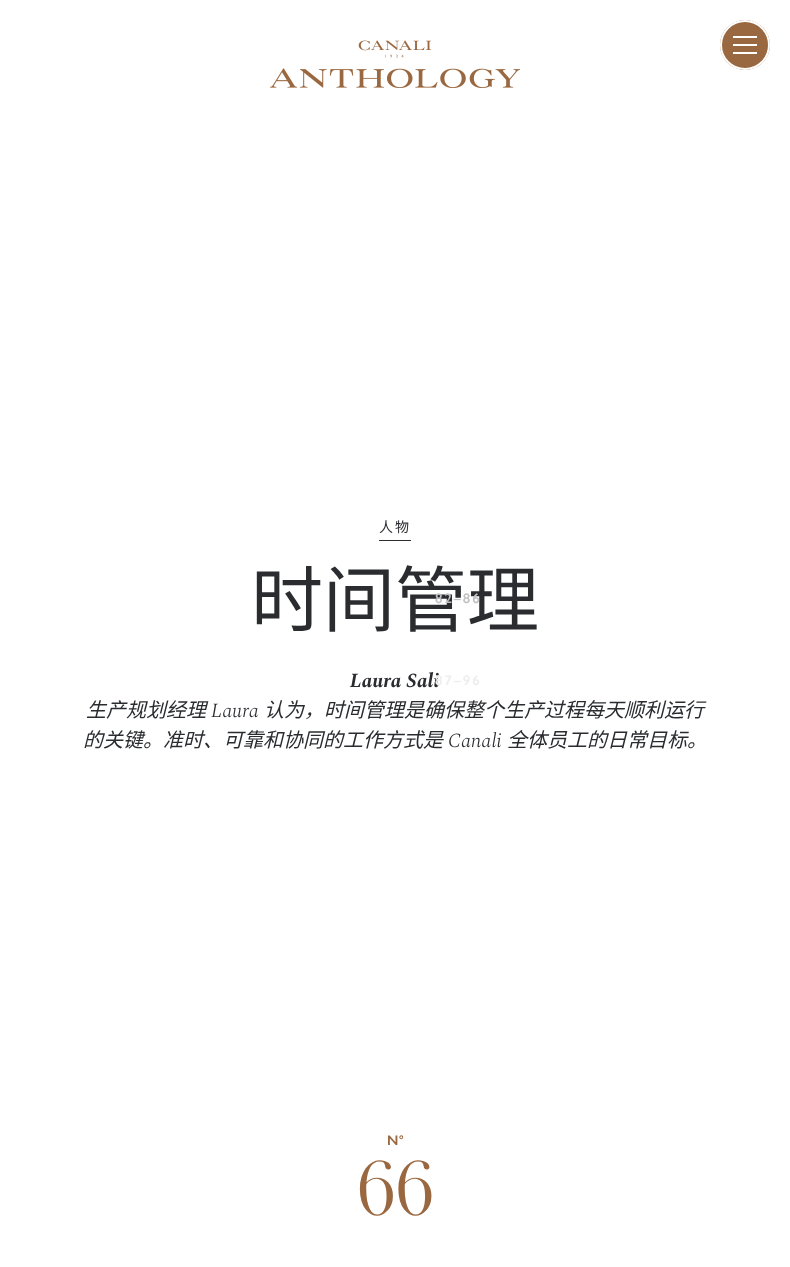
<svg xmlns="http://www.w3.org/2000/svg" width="790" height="1267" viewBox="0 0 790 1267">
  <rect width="100%" height="100%" fill="#ffffff"/>
  <circle cx="745" cy="45" r="25" fill="#9a6840"/>
  <rect x="733" y="36" width="24" height="2" fill="#ffffff"/>
  <rect x="733" y="44" width="24" height="2" fill="#ffffff"/>
  <rect x="733" y="52" width="24" height="2" fill="#ffffff"/>
  <circle cx="745" cy="45" r="24" fill="none" stroke="#ffffff" stroke-width="2"/>
  <image x="270" y="40" width="250" height="48" href="img1.png"/>
  <text x="379" y="532" font-family="Noto Sans CJK SC" font-size="14" letter-spacing="2" fill="#2a2c30">人物</text>
  <rect x="379" y="540" width="32" height="1" fill="#2a2c30"/>
  <text x="251" y="626" font-family="Noto Sans CJK SC" font-size="72" fill="#2a2c30">时间管理</text>
  <text x="350" y="687" font-family="Spectral" font-size="20" font-weight="bold" font-style="italic" fill="#2a2c30">Laura Sali</text>
  <text x="86" y="717" font-family="Noto Sans CJK SC" font-size="20" font-style="italic" fill="#2a2c30">生产规划经理</text>
  <text x="211" y="717" font-family="Spectral" font-size="20" font-weight="300" font-style="italic" fill="#2a2c30">Laura</text>
  <text x="264" y="717" font-family="Noto Sans CJK SC" font-size="20" font-style="italic" fill="#2a2c30">认为，时间管理是确保整个生产过程每天顺利运行</text>
  <text x="83" y="747" font-family="Noto Sans CJK SC" font-size="20" font-style="italic" fill="#2a2c30">的关键。准时、可靠和协同的工作方式是</text>
  <text x="448" y="747" font-family="Spectral" font-size="20" font-weight="300" font-style="italic" fill="#2a2c30">Canali</text>
  <text x="507" y="747" font-family="Noto Sans CJK SC" font-size="20" font-style="italic" fill="#2a2c30">全体员工的日常目标。</text>
  <text x="387" y="1145" font-family="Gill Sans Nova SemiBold" font-size="14" font-weight="600" fill="#9a6840">N°</text>
  <text x="357" y="1215" font-family="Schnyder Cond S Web" font-size="72" font-weight="300" fill="#9a6840">66</text>
  <text x="435" y="603" font-family="Gill Sans Nova SemiBold" font-size="14" font-weight="600" letter-spacing="2" fill="#c2c2c4">82–86</text>
  <text x="435" y="685" font-family="Gill Sans Nova SemiBold" font-size="14" font-weight="600" letter-spacing="2" fill="#eeeeee">87–96</text>
</svg>
